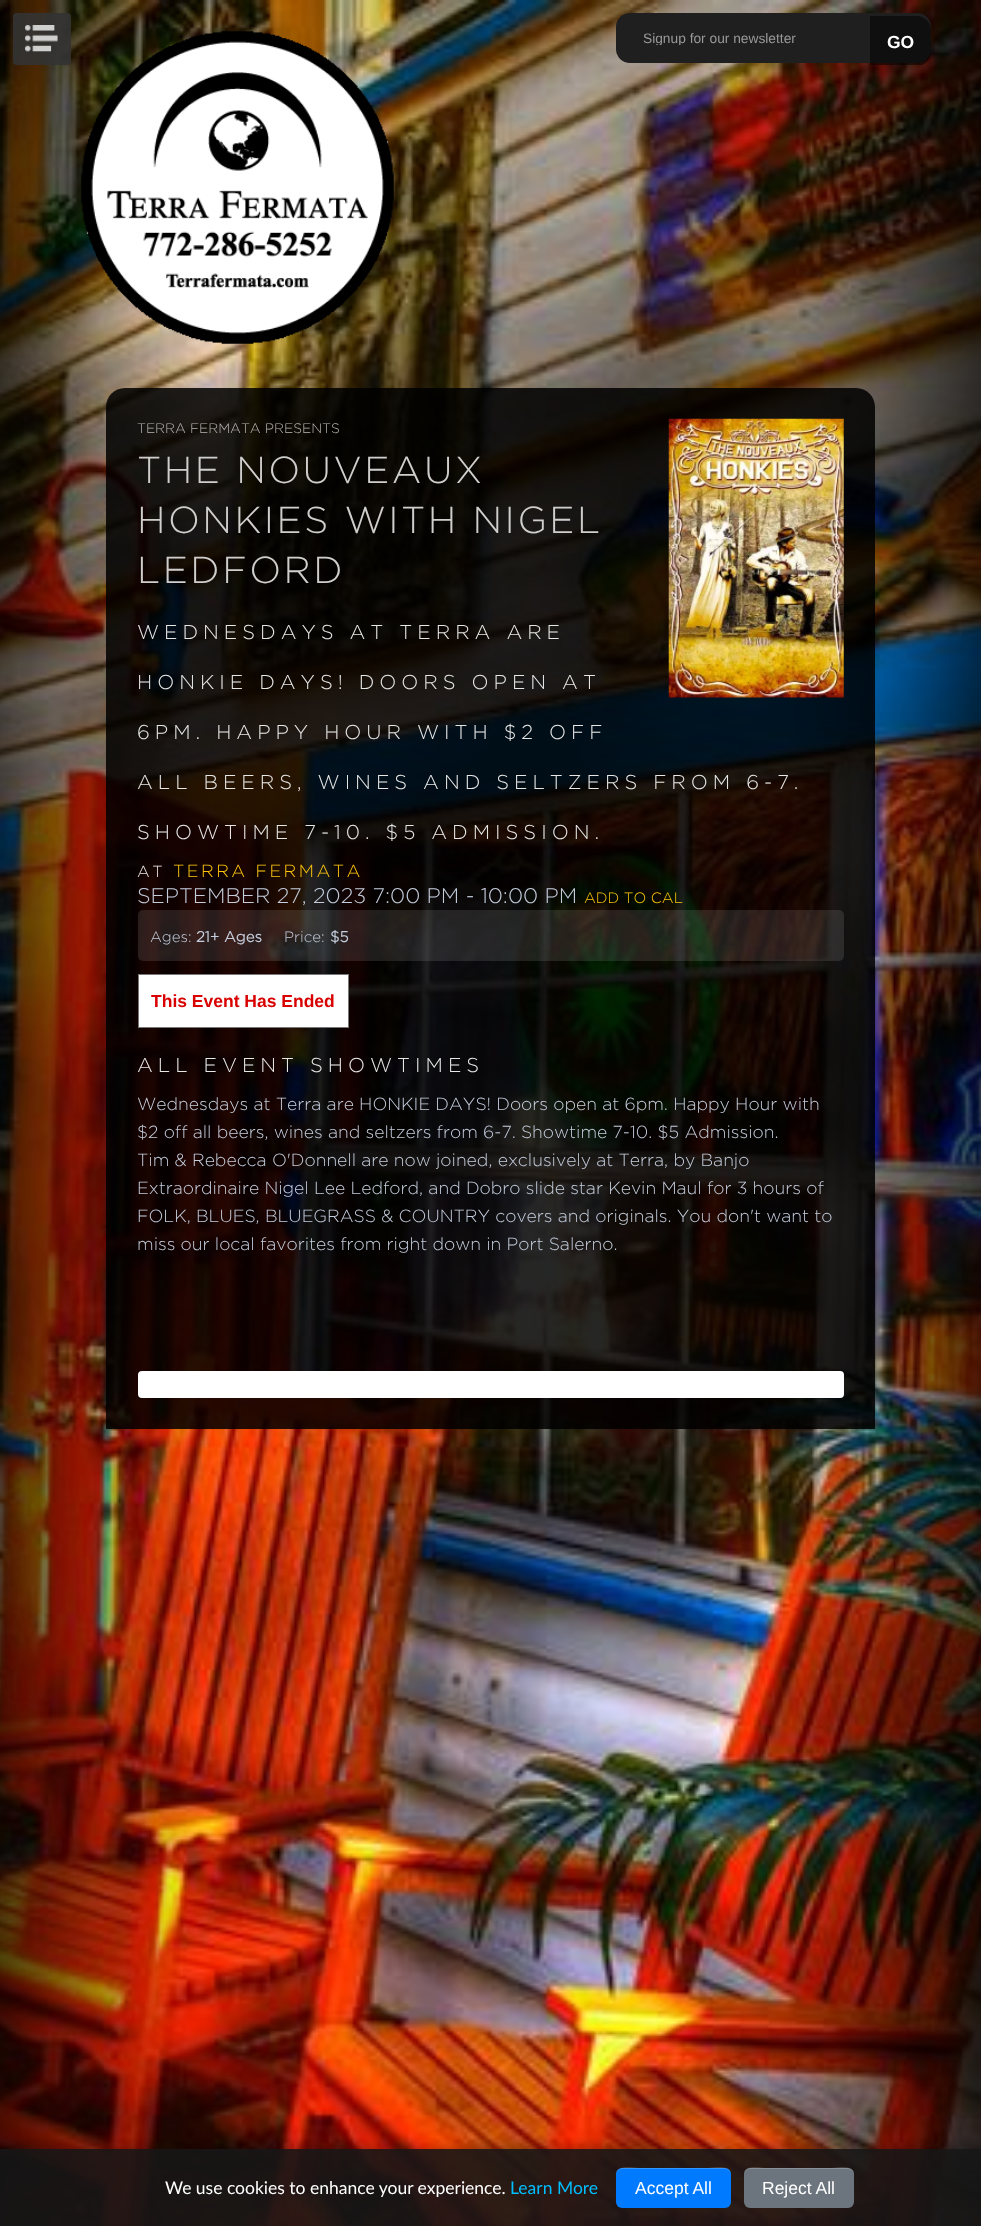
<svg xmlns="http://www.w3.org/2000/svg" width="981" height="2226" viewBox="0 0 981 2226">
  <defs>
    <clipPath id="clip1"><rect x="643" y="30" width="262" height="15"/></clipPath>
    <clipPath id="clip2"><rect x="870" y="13" width="61" height="52"/></clipPath>
    <clipPath id="clip3"><rect x="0" y="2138" width="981" height="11"/></clipPath>
    <filter id="blur1" x="-50%" y="-200%" width="200%" height="500%"><feGaussianBlur stdDeviation="5"/></filter>
  </defs>
  <rect width="100%" height="100%" fill="#ffffff"/>
  <image x="0" y="0" width="981" height="2226" href="img1.png"/>
  <rect x="13" y="13" width="58" height="52" rx="4" fill="#333333" fill-opacity="0.7"/>
  <image x="25" y="25" width="33" height="27" href="img2.png"/>
  <rect x="13" y="13" width="58" height="52" rx="4" fill="#333333" fill-opacity="0.7"/>
  <image x="25" y="25" width="33" height="27" href="img3.png"/>
  <rect x="616" y="13" width="315" height="50" rx="14" fill="#1f1f1f"/>
  <g clip-path="url(#clip1)">
    <text x="643" y="43" font-family="Liberation Sans" font-size="13.75" fill="#999999">Signup for our newsletter</text>
  </g>
  <g clip-path="url(#clip2)">
    <path d="M870 16H917C924.5 16 931 22.5 931 30V52C931 59.5 924.5 66 917 66H870Z" fill="#000000" fill-opacity="0.5"/>
  </g>
  <text x="887" y="48" font-family="Liberation Sans" font-size="17.5" font-weight="bold" fill="#ffffff">GO</text>
  <image x="81" y="31" width="313" height="313" href="img4.png"/>
  <path d="M125 388H856C866.5 388 875 396.5 875 407V1429H106V407C106 396.5 114.5 388 125 388Z" fill="#000000" fill-opacity="0.85"/>
  <image x="668" y="418" width="176" height="280" href="img5.png"/>
  <text x="137" y="433" font-family="Gotham" font-size="13.75" font-weight="300" fill="#b8b7b6">TERRA FERMATA PRESENTS</text>
  <text x="137" y="483" font-family="Gotham" font-size="37.5" font-weight="300" letter-spacing="2.5" fill="#cfcecd">THE NOUVEAUX</text>
  <text x="137" y="533" font-family="Gotham" font-size="37.5" font-weight="300" letter-spacing="2.5" fill="#cfcecd">HONKIES WITH NIGEL</text>
  <text x="137" y="583" font-family="Gotham" font-size="37.5" font-weight="300" letter-spacing="2.5" fill="#cfcecd">LEDFORD</text>
  <text x="137" y="639" font-family="Gotham" font-size="20" font-weight="300" letter-spacing="5" fill="#e7e7e6">WEDNESDAYS AT TERRA ARE</text>
  <text x="137" y="689" font-family="Gotham" font-size="20" font-weight="300" letter-spacing="5" fill="#e7e7e6">HONKIE DAYS! DOORS OPEN AT</text>
  <text x="137" y="739" font-family="Gotham" font-size="20" font-weight="300" letter-spacing="5" fill="#e7e7e6">6PM. HAPPY HOUR WITH $2 OFF</text>
  <text x="137" y="789" font-family="Gotham" font-size="20" font-weight="300" letter-spacing="5" fill="#e7e7e6">ALL BEERS, WINES AND SELTZERS FROM 6-7.</text>
  <text x="137" y="839" font-family="Gotham" font-size="20" font-weight="300" letter-spacing="5" fill="#e7e7e6">SHOWTIME 7-10. $5 ADMISSION.</text>
  <text x="137" y="877" font-family="Gotham" font-size="16" font-weight="300" letter-spacing="2.5" fill="#e7e7e6">AT</text>
  <text x="173" y="877" font-family="Gotham" font-size="17.5" font-weight="300" letter-spacing="2.5" fill="#fec70d">TERRA FERMATA</text>
  <text x="137" y="903" font-family="Gotham" font-size="21.25" font-weight="300" fill="#c4cddc">SEPTEMBER 27, 2023 7:00 PM - 10:00 PM</text>
  <text x="584" y="903" font-family="Gotham" font-size="15" font-weight="300" fill="#fec70d">ADD TO CAL</text>
  <rect x="138" y="910" width="706" height="51" rx="5" fill="#ffffff" fill-opacity="0.11"/>
  <text x="150" y="942" font-family="Gotham" font-size="15" font-weight="300" fill="#c4cddc">Ages:</text>
  <text x="196" y="942" font-family="Gotham" font-size="15" font-weight="bold" fill="#c4cddc">21+ Ages</text>
  <text x="284" y="942" font-family="Gotham" font-size="15" font-weight="300" fill="#c4cddc">Price:</text>
  <text x="330" y="942" font-family="Gotham" font-size="15" font-weight="bold" fill="#c4cddc">$5</text>
  <rect x="138.5" y="974.5" width="210" height="53" fill="#ffffff" stroke="#787878"/>
  <text x="151" y="1007" font-family="Liberation Sans" font-size="17.5" font-weight="bold" fill="#d90000">This Event Has Ended</text>
  <text x="137" y="1072" font-family="Gotham" font-size="20" font-weight="300" letter-spacing="5" fill="#e7e7e6">ALL EVENT SHOWTIMES</text>
  <text x="137" y="1110" font-family="Gotham" font-size="17.5" font-weight="300" fill="#c4cddc">Wednesdays at Terra are HONKIE DAYS! Doors open at 6pm. Happy Hour with</text>
  <text x="137" y="1138" font-family="Gotham" font-size="17.5" font-weight="300" fill="#c4cddc">$2 off all beers, wines and seltzers from 6-7. Showtime 7-10. $5 Admission.</text>
  <text x="137" y="1166" font-family="Gotham" font-size="17.5" font-weight="300" fill="#c4cddc">Tim &amp; Rebecca O'Donnell are now joined, exclusively at Terra, by Banjo</text>
  <text x="137" y="1194" font-family="Gotham" font-size="17.5" font-weight="300" fill="#c4cddc">Extraordinaire Nigel Lee Ledford, and Dobro slide star Kevin Maul for 3 hours of</text>
  <text x="137" y="1222" font-family="Gotham" font-size="17.5" font-weight="300" fill="#c4cddc">FOLK, BLUES, BLUEGRASS &amp; COUNTRY covers and originals. You don't want to</text>
  <text x="137" y="1250" font-family="Gotham" font-size="17.5" font-weight="300" fill="#c4cddc">miss our local favorites from right down in Port Salerno.</text>
  <rect x="138" y="1371" width="706" height="27" rx="4" fill="#ffffff"/>
  <g clip-path="url(#clip3)">
    <rect x="0" y="2144" width="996" height="77" fill="#000000" fill-opacity="0.2" filter="url(#blur1)"/>
  </g>
  <rect x="0" y="2149" width="981" height="77" fill="#161616" fill-opacity="0.9"/>
  <text x="165" y="2194" font-family="Lato" font-size="17.5" fill="#ffffff">We use cookies to enhance your experience.</text>
  <text x="510" y="2194" font-family="Lato" font-size="17.5" fill="#00bfff">Learn More</text>
  <rect x="616" y="2168" width="115" height="40" rx="6" fill="#007bff"/>
  <path d="M622 2169H725C728 2169 731 2172 731 2175C731 2164 714 2168 708 2168H639C633 2168 616 2164 616 2175C616 2172 619 2169 622 2169Z" fill="#ffffff" fill-opacity="0.2"/>
  <text x="635" y="2194" font-family="Liberation Sans" font-size="17.5" fill="#ffffff">Accept All</text>
  <rect x="744" y="2168" width="110" height="40" rx="6" fill="#6c757d"/>
  <path d="M750 2169H848C851 2169 854 2172 854 2175C854 2164 838 2168 832 2168H766C760 2168 744 2164 744 2175C744 2172 747 2169 750 2169Z" fill="#ffffff" fill-opacity="0.2"/>
  <text x="762" y="2194" font-family="Liberation Sans" font-size="17.5" fill="#ffffff">Reject All</text>
</svg>
